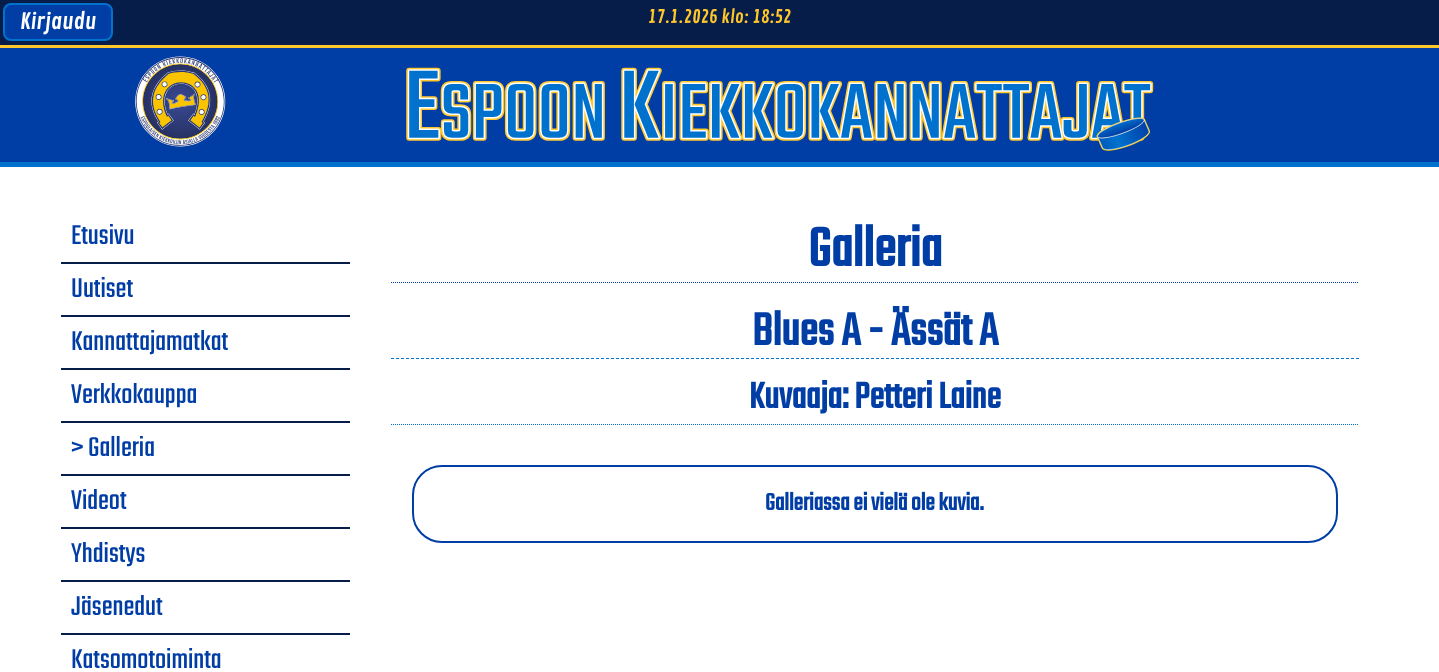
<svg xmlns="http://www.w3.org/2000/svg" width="1439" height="672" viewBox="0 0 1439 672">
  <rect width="100%" height="100%" fill="#ffffff"/>
  <rect x="0" y="0" width="1439" height="45" fill="#071d49"/>
  <rect x="4" y="4" width="108" height="36" rx="7" fill="#003da5" stroke="#0072ce" stroke-width="2"/>
  <text x="20" y="29" font-family="Contrail One" font-size="22" fill="#ffffff">Kirjaudu</text>
  <rect x="0" y="45" width="1439" height="3" fill="#ffc72c"/>
  <text x="648" y="23" font-family="Contrail One" font-size="18" fill="#ffc72c">17.1.2026 klo: 18:52</text>
  <rect x="0" y="48" width="1439" height="114" fill="#003da5"/>
  <rect x="0" y="162" width="1439" height="5" fill="#0072ce"/>
  <image x="135" y="56" width="91" height="91" href="img1.png"/>
  <image x="406" y="67" width="748" height="84" href="img2.png"/>
  <rect x="61" y="262" width="289" height="2" fill="#071d49"/>
  <text x="71" y="244" font-family="Teko" font-size="30" font-weight="300" fill="#003da5">Etusivu</text>
  <rect x="61" y="315" width="289" height="2" fill="#071d49"/>
  <text x="71" y="297" font-family="Teko" font-size="30" font-weight="300" fill="#003da5">Uutiset</text>
  <rect x="61" y="368" width="289" height="2" fill="#071d49"/>
  <text x="71" y="350" font-family="Teko" font-size="30" font-weight="300" fill="#003da5">Kannattajamatkat</text>
  <rect x="61" y="421" width="289" height="2" fill="#071d49"/>
  <text x="71" y="403" font-family="Teko" font-size="30" font-weight="300" fill="#003da5">Verkkokauppa</text>
  <rect x="61" y="474" width="289" height="2" fill="#071d49"/>
  <text x="71" y="456" font-family="Teko" font-size="30" font-weight="300" fill="#003da5">&gt; Galleria</text>
  <rect x="61" y="527" width="289" height="2" fill="#071d49"/>
  <text x="71" y="509" font-family="Teko" font-size="30" font-weight="300" fill="#003da5">Videot</text>
  <rect x="61" y="580" width="289" height="2" fill="#071d49"/>
  <text x="71" y="562" font-family="Teko" font-size="30" font-weight="300" fill="#003da5">Yhdistys</text>
  <rect x="61" y="633" width="289" height="2" fill="#071d49"/>
  <text x="71" y="615" font-family="Teko" font-size="30" font-weight="300" fill="#003da5">Jäsenedut</text>
  <text x="71" y="668" font-family="Teko" font-size="30" font-weight="300" fill="#003da5">Katsomotoiminta</text>
  <path d="M391 282.5H1359" fill="none" stroke="#003da5" stroke-dasharray="1 1"/>
  <text x="808" y="266" font-family="Teko" font-size="60" font-weight="bold" fill="#003da5">Galleria</text>
  <path d="M391 358.5H1359" fill="none" stroke="#0072ce" stroke-dasharray="3 2"/>
  <text x="752" y="345" font-family="Teko" font-size="50" font-weight="bold" fill="#003da5">Blues A - Ässät A</text>
  <path d="M391 424.5H1359" fill="none" stroke="#0072ce" stroke-dasharray="1 1"/>
  <text x="749" y="408" font-family="Teko" font-size="40" font-weight="bold" fill="#003da5">Kuvaaja: Petteri Laine</text>
  <rect x="413" y="466" width="924" height="76" rx="29" fill="none" stroke="#003da5" stroke-width="2"/>
  <text x="765" y="510" font-family="Teko" font-size="26" font-weight="bold" fill="#003da5">Galleriassa ei vielä ole kuvia.</text>
</svg>
